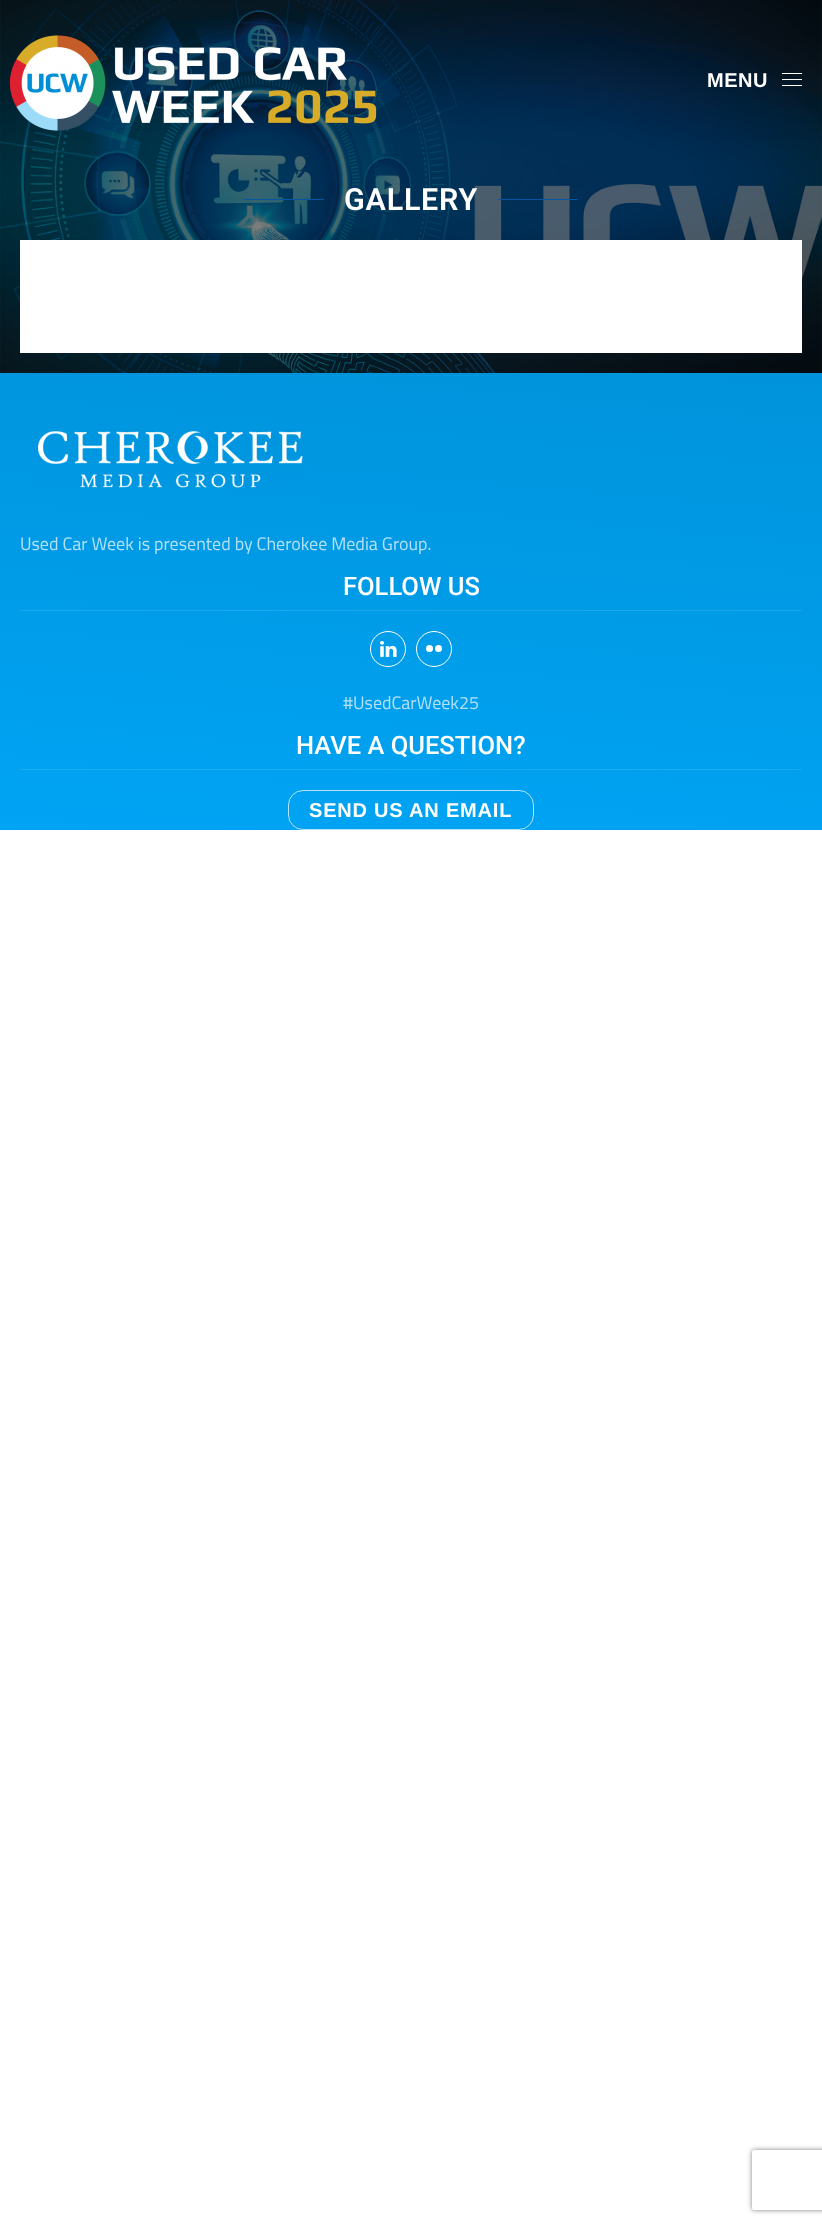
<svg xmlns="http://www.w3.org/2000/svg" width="822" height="2224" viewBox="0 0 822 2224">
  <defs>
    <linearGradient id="g1" gradientUnits="userSpaceOnUse" x1="388" y1="864" x2="434" y2="339"><stop offset="0" stop-color="#00a4f4"/><stop offset="1" stop-color="#0093db"/></linearGradient>
    <linearGradient id="g2" gradientUnits="userSpaceOnUse" x1="388" y1="864" x2="434" y2="339"><stop offset="0" stop-color="#1aadf5"/><stop offset="1" stop-color="#1a9edf"/></linearGradient>
    <clipPath id="clip1"><path d="M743 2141H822V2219H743ZM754 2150H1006C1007 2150 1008 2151 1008 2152V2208C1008 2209 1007 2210 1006 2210H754C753 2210 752 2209 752 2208V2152C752 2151 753 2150 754 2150Z" clip-rule="evenodd"/></clipPath>
    <filter id="blur1" x="-50%" y="-200%" width="200%" height="500%"><feGaussianBlur stdDeviation="2.5"/></filter>
  </defs>
  <rect width="100%" height="100%" fill="#ffffff"/>
  <image x="0" y="0" width="822" height="373" href="img2.png"/>
  <image x="9" y="35" width="368" height="96" href="img1.png"/>
  <text x="707" y="87" font-family="Liberation Sans" font-size="20" font-weight="bold" letter-spacing="0.5" fill="#ffffff">MENU</text>
  <rect x="782" y="73" width="20" height="1" fill="#ffffff"/>
  <rect x="782" y="79" width="20" height="1" fill="#ffffff"/>
  <rect x="782" y="85" width="20" height="1" fill="#ffffff"/>
  <rect x="244" y="199" width="80" height="1" fill="#0455a4"/>
  <text x="344" y="210" font-family="Roboto" font-size="30.5" font-weight="600" letter-spacing="0.75" fill="#ffffff">GALLERY</text>
  <rect x="498" y="199" width="80" height="1" fill="#0455a4"/>
  <rect x="20" y="240" width="782" height="113" fill="#ffffff"/>
  <rect x="0" y="373" width="822" height="457" fill="url(#g1)"/>
  <rect x="20" y="769" width="782" height="1" fill="url(#g2)"/>
  <rect x="20" y="610" width="782" height="1" fill="url(#g2)"/>
  <image x="37" y="431" width="266" height="57" href="img3.png"/>
  <text x="20" y="550" font-family="Titillium Web" font-size="18" fill="#b3e1f7">Used Car Week is presented by Cherokee Media Group.</text>
  <text x="343" y="595" font-family="Roboto" font-size="25.5" font-weight="500" fill="#ffffff">FOLLOW US</text>
  <circle cx="388" cy="649" r="17.5" fill="none" stroke="#ffffff"/>
  <image x="380" y="641" width="17" height="16" href="img4.png"/>
  <circle cx="434" cy="649" r="17.5" fill="none" stroke="#ffffff"/>
  <circle cx="429.5" cy="648.5" r="3.5" fill="#ffffff"/>
  <circle cx="438.5" cy="648.5" r="3.5" fill="#ffffff"/>
  <text x="343" y="709" font-family="Titillium Web" font-size="18" fill="#b3e1f7">#UsedCarWeek25</text>
  <text x="296" y="754" font-family="Roboto" font-size="25.5" font-weight="500" fill="#ffffff">HAVE A QUESTION?</text>
  <rect x="288.5" y="790.5" width="245" height="39" rx="14.5" fill="none" stroke="#ffffff" stroke-opacity="0.7"/>
  <text x="309" y="817" font-family="Liberation Sans" font-size="20" font-weight="bold" letter-spacing="0.8" fill="#ffffff">SEND US AN EMAIL</text>
  <g clip-path="url(#clip1)">
    <rect x="752" y="2150" width="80" height="60" rx="2" fill="#808080" filter="url(#blur1)"/>
  </g>
</svg>
